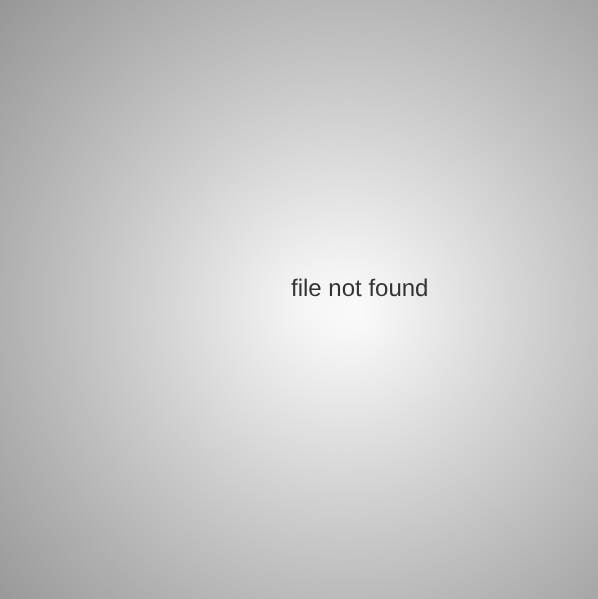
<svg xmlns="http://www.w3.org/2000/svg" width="598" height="599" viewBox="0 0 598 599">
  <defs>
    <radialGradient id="g1" gradientUnits="userSpaceOnUse" cx="299" cy="300" r="500"><stop offset="0" stop-color="#ffffff"/><stop offset="1" stop-color="#d7d7d7"/></radialGradient>
    <radialGradient id="g2" gradientUnits="userSpaceOnUse" cx="360" cy="313" r="1500"><stop offset="0" stop-color="#000000" stop-opacity="0"/><stop offset="1" stop-color="#000000"/></radialGradient>
  </defs>
  <rect width="100%" height="100%" fill="#ffffff"/>
  <rect x="0" y="0" width="598" height="599" fill="url(#g1)"/>
  <rect x="0" y="0" width="598" height="599" fill="url(#g2)"/>
  <text x="291" y="296" font-family="Liberation Sans" font-size="24" fill="#333333">file not found</text>
</svg>
